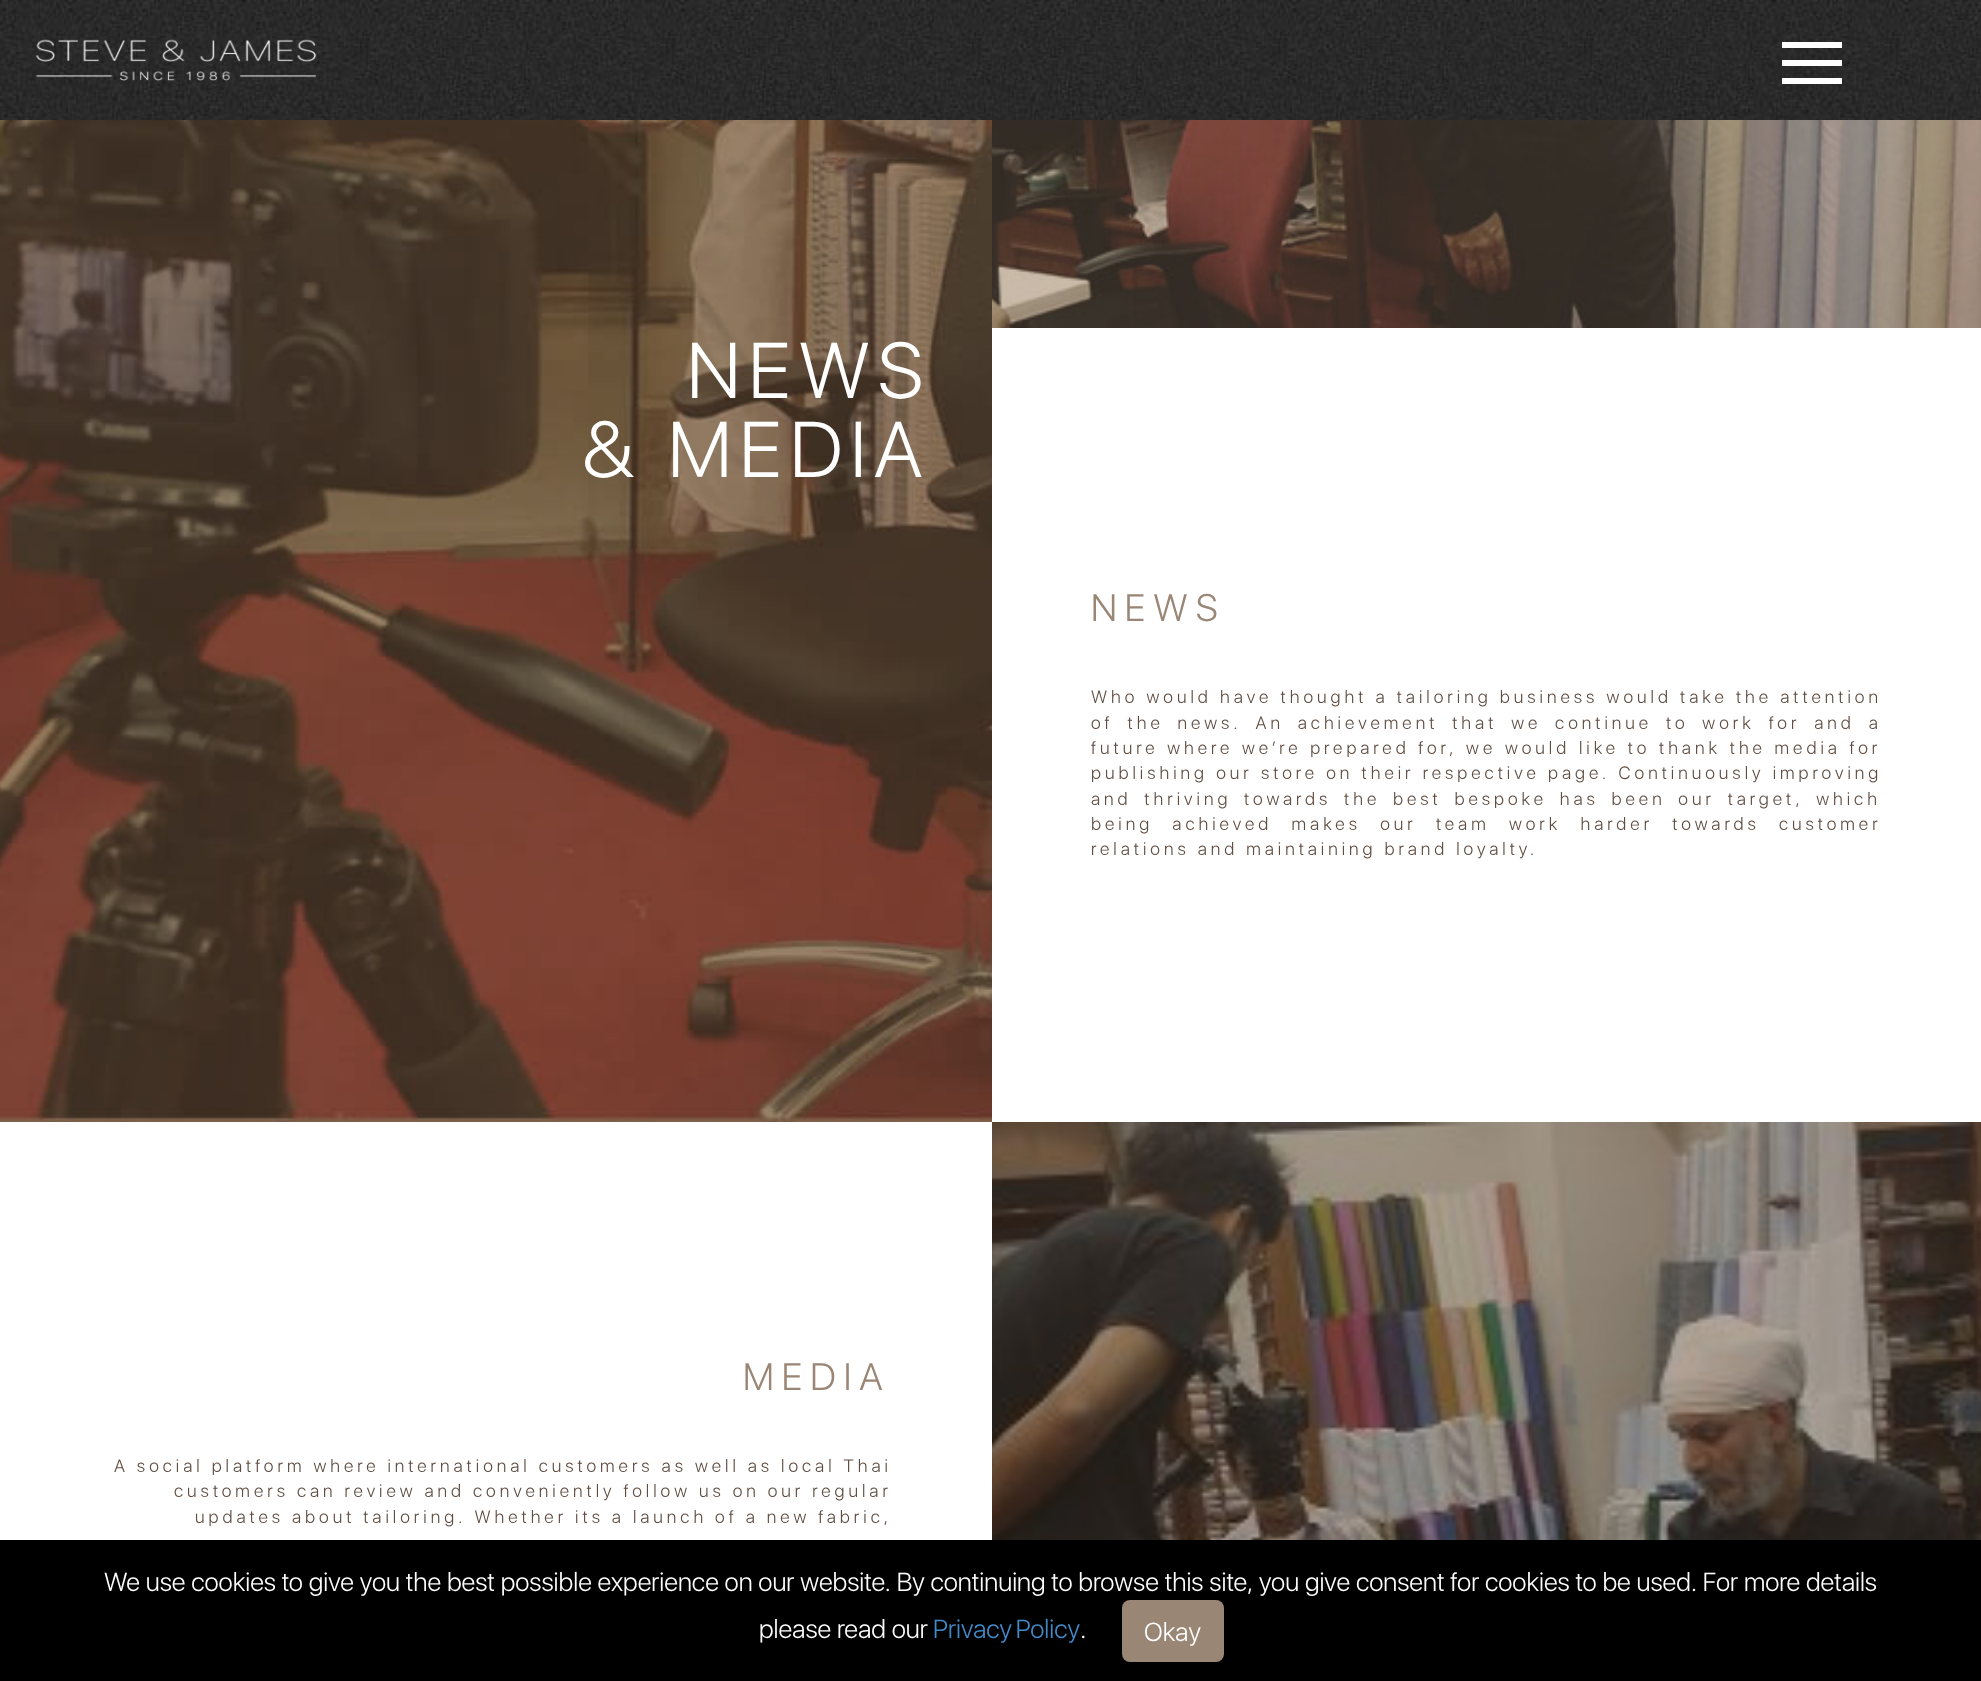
<svg xmlns="http://www.w3.org/2000/svg" width="1981" height="1681" viewBox="0 0 1981 1681">
  <rect width="100%" height="100%" fill="#ffffff"/>
  <image x="0" y="0" width="1981" height="120" href="img1.png"/>
  <image x="35" y="39" width="282" height="42" href="img2.png"/>
  <rect x="1782" y="42" width="60" height="6" fill="#ffffff"/>
  <rect x="1782" y="60" width="60" height="6" fill="#ffffff"/>
  <rect x="1782" y="78" width="60" height="6" fill="#ffffff"/>
  <image x="0" y="120" width="992" height="1002" href="img3.png"/>
  <text x="687" y="398" font-family="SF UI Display" font-size="78.5" font-weight="300" letter-spacing="8" fill="#ffffff">NEWS</text>
  <text x="582" y="477" font-family="SF UI Display" font-size="78.5" font-weight="300" letter-spacing="8" fill="#ffffff">&amp; MEDIA</text>
  <image x="992" y="120" width="989" height="208" href="img4.png"/>
  <text x="1091" y="621" font-family="SF UI Display" font-size="38" font-weight="300" letter-spacing="8" fill="#998675">NEWS</text>
  <text x="1091" y="703" word-spacing="0.25" font-family="SF UI Display" font-size="17.75" font-weight="300" letter-spacing="4" fill="#5f4d42">Who would have thought a tailoring business would take the attention</text>
  <text x="1091" y="729" word-spacing="5.9" font-family="SF UI Display" font-size="17.75" font-weight="300" letter-spacing="4" fill="#5f4d42">of the news. An achievement that we continue to work for and a</text>
  <text x="1091" y="754" word-spacing="0.75" font-family="SF UI Display" font-size="17.75" font-weight="300" letter-spacing="4" fill="#5f4d42">future where we’re prepared for, we would like to thank the media for</text>
  <text x="1091" y="779" word-spacing="0.25" font-family="SF UI Display" font-size="17.75" font-weight="300" letter-spacing="4" fill="#5f4d42">publishing our store on their respective page. Continuously improving</text>
  <text x="1091" y="805" word-spacing="4.75" font-family="SF UI Display" font-size="17.75" font-weight="300" letter-spacing="4" fill="#5f4d42">and thriving towards the best bespoke has been our target, which</text>
  <text x="1091" y="830" word-spacing="11.25" font-family="SF UI Display" font-size="17.75" font-weight="300" letter-spacing="4" fill="#5f4d42">being achieved makes our team work harder towards customer</text>
  <text x="1091" y="855" font-family="SF UI Display" font-size="17.75" font-weight="300" letter-spacing="4" fill="#5f4d42">relations and maintaining brand loyalty.</text>
  <text x="743" y="1390" font-family="SF UI Display" font-size="38" font-weight="300" letter-spacing="8" fill="#998675">MEDIA</text>
  <text x="114" y="1472" font-family="SF UI Display" font-size="17.75" font-weight="300" letter-spacing="4" fill="#5f4d42">A social platform where international customers as well as local Thai</text>
  <text x="174" y="1497" font-family="SF UI Display" font-size="17.75" font-weight="300" letter-spacing="4" fill="#5f4d42">customers can review and conveniently follow us on our regular</text>
  <text x="195" y="1523" font-family="SF UI Display" font-size="17.75" font-weight="300" letter-spacing="4" fill="#5f4d42">updates about tailoring. Whether its a launch of a new fabric,</text>
  <image x="992" y="1122" width="989" height="418" href="img5.png"/>
  <rect x="0" y="1540" width="1981" height="141" fill="#000000"/>
  <text x="104" y="1591" font-family="SF UI Display" font-size="26" font-weight="300" fill="#ffffff">We use cookies to give you the best possible experience on our website. By continuing to browse this site, you give consent for cookies to be used. For more details</text>
  <text x="759" y="1638" font-family="SF UI Display" font-size="26" font-weight="300" fill="#ffffff">please read our</text>
  <text x="933" y="1638" word-spacing="-2" font-family="SF UI Display" font-size="26" font-weight="300" fill="#428bca">Privacy Policy</text>
  <text x="1080" y="1638" font-family="SF UI Display" font-size="26" font-weight="300" fill="#ffffff">.</text>
  <rect x="1122" y="1600" width="102" height="62" rx="8" fill="#998675"/>
  <text x="1144" y="1641" font-family="SF UI Display" font-size="26" font-weight="300" fill="#ffffff">Okay</text>
</svg>
